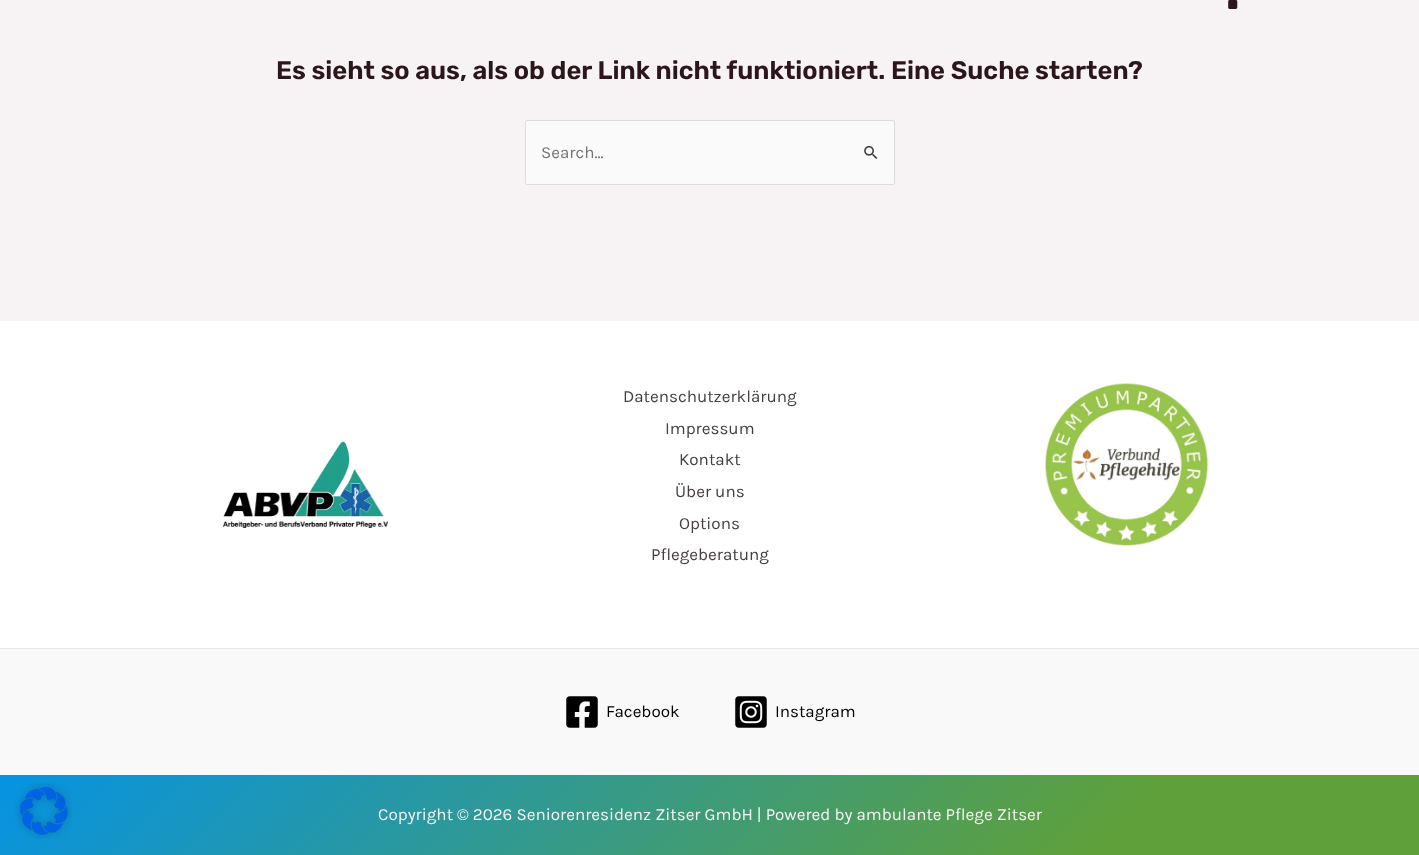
<svg xmlns="http://www.w3.org/2000/svg" width="1419" height="855" viewBox="0 0 1419 855">
  <defs>
    <linearGradient id="g1" gradientUnits="userSpaceOnUse" x1="335" y1="440" x2="1084" y2="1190"><stop offset="0" stop-color="#0693e3"/><stop offset="0.78" stop-color="#5fa03a"/></linearGradient>
  </defs>
  <rect width="100%" height="100%" fill="#f7f3f5"/>
  <rect x="0" y="775" width="1419" height="80" fill="url(#g1)"/>
  <image x="15" y="782" width="57" height="57" href="img1.png"/>
  <text x="1225" y="9" font-family="Rubik" font-size="56" font-weight="600" fill="#2b161b">.</text>
  <text x="276" y="79" font-family="Rubik" font-size="25.5" font-weight="600" fill="#2b161b">Es sieht so aus, als ob der Link nicht funktioniert. Eine Suche starten?</text>
  <rect x="525.5" y="120.5" width="369" height="64" rx="1.5" fill="#fafafa" stroke="#dddddd"/>
  <text x="541" y="158" font-family="Karla" font-size="17" fill="#757575">Search...</text>
  <image x="864" y="145" width="14" height="14" href="img2.png"/>
  <rect x="0" y="321" width="1419" height="327" fill="#ffffff"/>
  <image x="223" y="441" width="165" height="87" href="img3.png"/>
  <text x="623" y="402" font-family="Karla" font-size="17" fill="#453e3e">Datenschutzerklärung</text>
  <text x="665" y="434" font-family="Karla" font-size="17" fill="#453e3e">Impressum</text>
  <text x="679" y="465" font-family="Karla" font-size="17" fill="#453e3e">Kontakt</text>
  <text x="675" y="497" font-family="Karla" font-size="17" fill="#453e3e">Über uns</text>
  <text x="679" y="529" font-family="Karla" font-size="17" fill="#453e3e">Options</text>
  <text x="651" y="560" font-family="Karla" font-size="17" fill="#453e3e">Pflegeberatung</text>
  <image x="1045" y="383" width="164" height="163" href="img4.png"/>
  <rect x="0" y="649" width="1419" height="126" fill="#f9f9f9"/>
  <rect x="0" y="648" width="1419" height="1" fill="#e6e6e6"/>
  <image x="566" y="696" width="32" height="32" href="img5.png"/>
  <text x="606" y="717" font-family="Karla" font-size="17" fill="#000000">Facebook</text>
  <image x="735" y="696" width="32" height="32" href="img6.png"/>
  <text x="775" y="717" font-family="Karla" font-size="17" fill="#000000">Instagram</text>
  <text x="378" y="820" font-family="Karla" font-size="17" fill="#f7f3f5">Copyright © 2026 Seniorenresidenz Zitser GmbH | Powered by ambulante Pflege Zitser</text>
</svg>
